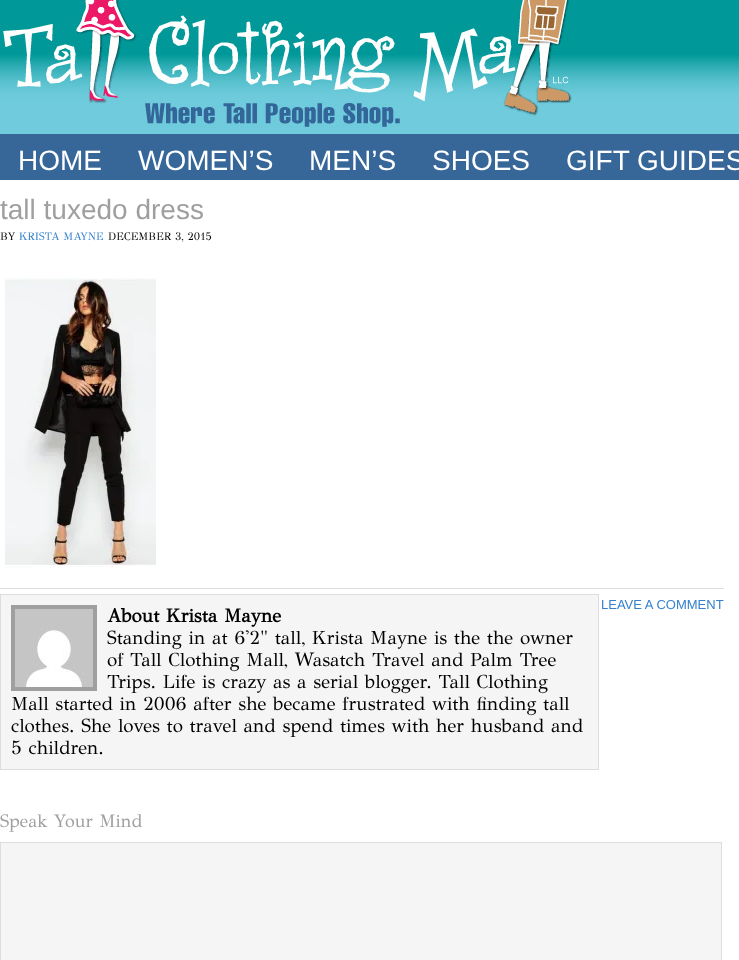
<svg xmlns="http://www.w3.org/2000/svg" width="739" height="960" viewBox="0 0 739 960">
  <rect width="100%" height="100%" fill="#ffffff"/>
  <image x="0" y="0" width="739" height="180" href="img1.png"/>
  <image x="2" y="0" width="571" height="128" href="img2.png"/>
  <text x="18" y="170" font-family="Liberation Sans" font-size="28" fill="#ffffff">HOME</text>
  <text x="138" y="170" font-family="Liberation Sans" font-size="28" fill="#ffffff">WOMEN’S</text>
  <text x="309" y="170" font-family="Liberation Sans" font-size="28" fill="#ffffff">MEN’S</text>
  <text x="432" y="170" font-family="Liberation Sans" font-size="28" fill="#ffffff">SHOES</text>
  <text x="566" y="170" font-family="Liberation Sans" font-size="28" fill="#ffffff">GIFT GUIDES</text>
  <text x="0" y="219" font-family="Liberation Sans" font-size="28" fill="#9f9f9f">tall tuxedo dress</text>
  <text x="0" y="240" font-family="GFS Didot" font-size="11" fill="#000000">BY</text>
  <text x="19" y="240" font-family="GFS Didot" font-size="11" fill="#3581cc">KRISTA MAYNE</text>
  <text x="108" y="240" font-family="GFS Didot" font-size="11" fill="#000000">DECEMBER 3, 2015</text>
  <image x="5" y="278" width="151" height="290" href="img3.png"/>
  <rect x="0" y="588" width="724" height="1" fill="#dddddd"/>
  <text x="601" y="609" font-family="Liberation Sans" font-size="13" fill="#3581cc">LEAVE A COMMENT</text>
  <rect x="0.5" y="594.5" width="598" height="175" fill="#f5f5f5" stroke="#dddddd"/>
  <rect x="11" y="605" width="86" height="86" fill="#9f9f9f"/>
  <image x="15" y="609" width="78" height="78" href="img4.png"/>
  <text x="107" y="622" font-family="GFS Didot" font-size="19" font-weight="bold" fill="#000000">About Krista Mayne</text>
  <text x="107" y="644" font-family="GFS Didot" font-size="19" fill="#000000">Standing in at 6'2" tall, Krista Mayne is the the owner</text>
  <text x="107" y="666" font-family="GFS Didot" font-size="19" fill="#000000">of Tall Clothing Mall, Wasatch Travel and Palm Tree</text>
  <text x="107" y="688" font-family="GFS Didot" font-size="19" fill="#000000">Trips. Life is crazy as a serial blogger. Tall Clothing</text>
  <text x="11" y="710" font-family="GFS Didot" font-size="19" fill="#000000">Mall started in 2006 after she became frustrated with finding tall</text>
  <text x="11" y="732" font-family="GFS Didot" font-size="19" fill="#000000">clothes. She loves to travel and spend times with her husband and</text>
  <text x="11" y="754" font-family="GFS Didot" font-size="19" fill="#000000">5 children.</text>
  <text x="0" y="827" font-family="GFS Didot" font-size="18" fill="#9f9f9f">Speak Your Mind</text>
  <rect x="0.5" y="842.5" width="721" height="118" fill="#f5f5f5" stroke="#dddddd"/>
</svg>
